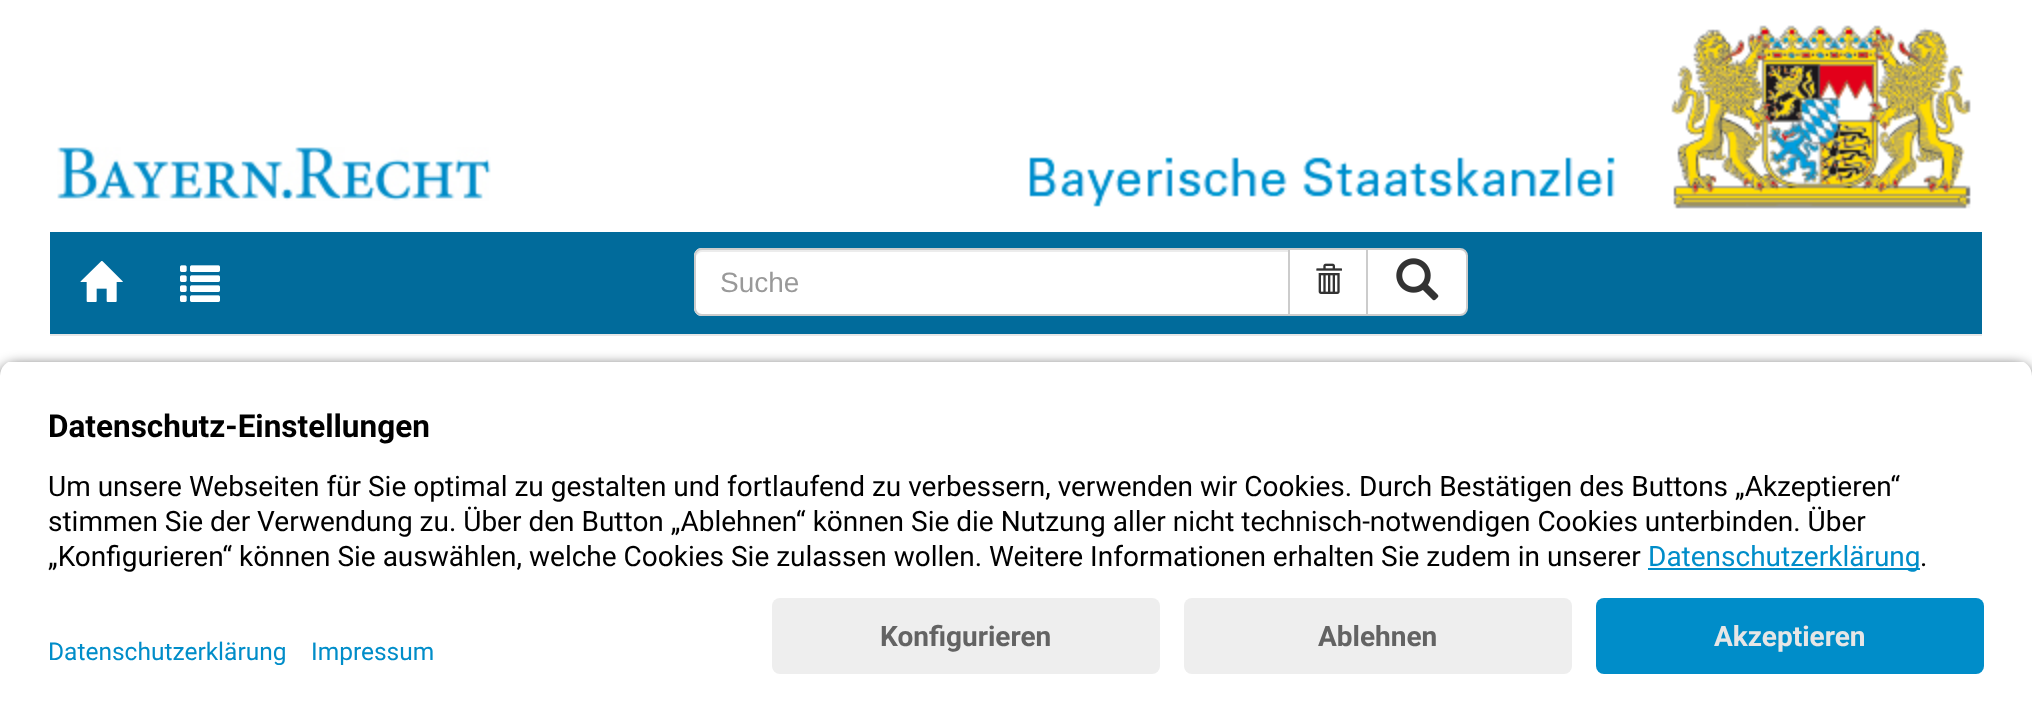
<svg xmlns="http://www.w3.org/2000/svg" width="2032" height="721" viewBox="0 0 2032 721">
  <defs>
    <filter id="blur1" x="-50%" y="-200%" width="200%" height="500%"><feGaussianBlur stdDeviation="7"/></filter>
    <clipPath id="clip1"><path d="M16 360H2016C2025 360 2032 367 2032 376V582H0V376C0 367 7 360 16 360Z"/></clipPath>
  </defs>
  <rect width="100%" height="100%" fill="#ffffff"/>
  <rect x="50" y="232" width="1932" height="102" fill="#016b9b"/>
  <rect x="50" y="334" width="1932" height="2" fill="#e7e7e7"/>
  <image x="57" y="147" width="434" height="54" href="img1.png"/>
  <image x="1029" y="25" width="942" height="184" href="img2.png"/>
  <image x="80" y="261" width="43" height="41" href="img3.png"/>
  <image x="180" y="265" width="40" height="37" href="img4.png"/>
  <rect x="1289" y="249" width="78" height="66" fill="#ffffff" stroke="#cccccc" stroke-width="2"/>
  <path d="M702 248H1290V316H702C697.5 316 694 312.5 694 308V256C694 251.5 697.5 248 702 248Z" fill="#ffffff"/>
  <path d="M702 252H1288V250H702C697 250 696 254 696 258C696 255 699 252 702 252Z" fill="#ececec"/>
  <path d="M702 249H1289V315H702C698 315 695 312 695 308V256C695 252 698 249 702 249Z" fill="none" stroke="#cccccc" stroke-width="2"/>
  <text x="720" y="292" font-family="Liberation Sans" font-size="28" fill="#999999">Suche</text>
  <image x="1316" y="263" width="26" height="31" href="img5.png"/>
  <path d="M1367 249H1460C1464 249 1467 252 1467 256V308C1467 312 1464 315 1460 315H1367Z" fill="#ffffff" stroke="#cccccc" stroke-width="2"/>
  <image x="1396" y="258" width="43" height="43" href="img6.png"/>
  <rect x="0" y="366" width="2032" height="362" rx="16" fill="#000000" fill-opacity="0.8" filter="url(#blur1)"/>
  <g clip-path="url(#clip1)">
    <rect x="0" y="362" width="2032" height="220" fill="#ffffff"/>
  </g>
  <text x="48" y="437" font-family="Roboto" font-size="31.5" font-weight="bold" fill="#000000">Datenschutz-Einstellungen</text>
  <text x="48" y="496" font-family="Roboto" font-size="28" fill="#000000">Um unsere Webseiten für Sie optimal zu gestalten und fortlaufend zu verbessern, verwenden wir Cookies. Durch Bestätigen des Buttons „Akzeptieren“</text>
  <text x="48" y="531" font-family="Roboto" font-size="28" fill="#000000">stimmen Sie der Verwendung zu. Über den Button „Ablehnen“ können Sie die Nutzung aller nicht technisch-notwendigen Cookies unterbinden. Über</text>
  <text x="48" y="566" font-family="Roboto" font-size="28" fill="#000000">„Konfigurieren“ können Sie auswählen, welche Cookies Sie zulassen wollen. Weitere Informationen erhalten Sie zudem in unserer</text>
  <rect x="1648" y="568" width="272" height="2" fill="#008dc9"/>
  <text x="1648" y="566" font-family="Roboto" font-size="28" fill="#008dc9">Datenschutzerklärung</text>
  <text x="1920" y="566" font-family="Roboto" font-size="28" fill="#000000">.</text>
  <rect x="0" y="582" width="2032" height="139" fill="#ffffff"/>
  <text x="48" y="660" font-family="Roboto" font-size="24.5" fill="#008dc9">Datenschutzerklärung</text>
  <text x="311" y="660" font-family="Roboto" font-size="24.5" fill="#008dc9">Impressum</text>
  <rect x="772" y="598" width="388" height="76" rx="8" fill="#eeeeee"/>
  <text x="880" y="646" font-family="Roboto" font-size="28" font-weight="bold" fill="#636363">Konfigurieren</text>
  <rect x="1184" y="598" width="388" height="76" rx="8" fill="#eeeeee"/>
  <text x="1318" y="646" font-family="Roboto" font-size="28" font-weight="bold" fill="#636363">Ablehnen</text>
  <rect x="1596" y="598" width="388" height="76" rx="8" fill="#008dc9"/>
  <text x="1714" y="646" font-family="Roboto" font-size="28" font-weight="bold" fill="#e6e6e6">Akzeptieren</text>
</svg>
